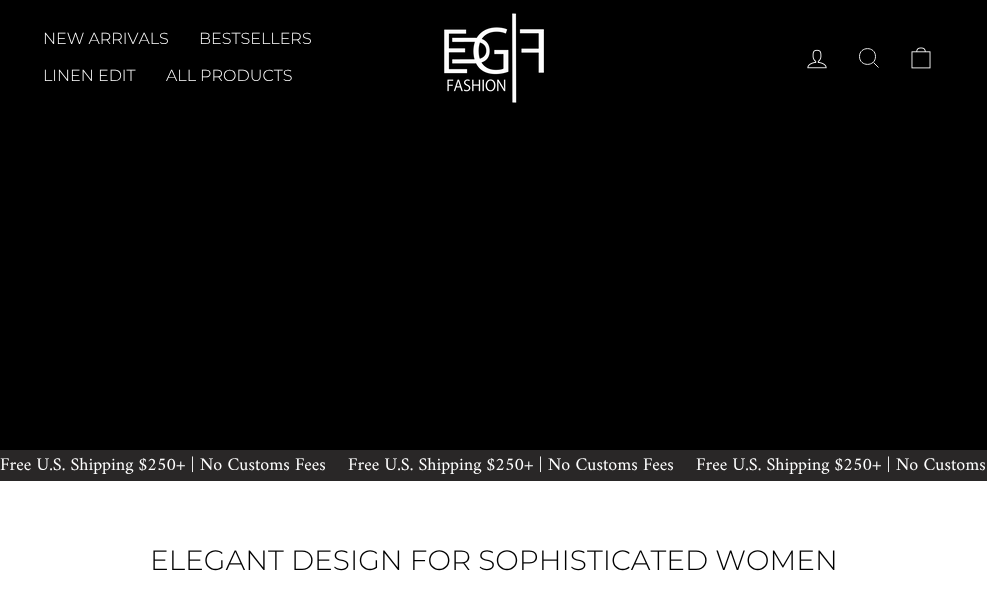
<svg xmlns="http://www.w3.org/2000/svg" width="987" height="601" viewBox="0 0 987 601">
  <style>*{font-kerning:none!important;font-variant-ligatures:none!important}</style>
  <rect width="100%" height="100%" fill="#ffffff"/>
  <rect x="0" y="0" width="987" height="450" fill="#000000"/>
  <text x="43" y="44" font-family="Montserrat" font-size="16" font-weight="300" fill="#ffffff">NEW ARRIVALS</text>
  <text x="199" y="44" font-family="Montserrat" font-size="16" font-weight="300" fill="#ffffff">BESTSELLERS</text>
  <text x="43" y="81" font-family="Montserrat" font-size="16" font-weight="300" fill="#ffffff">LINEN EDIT</text>
  <text x="166" y="81" font-family="Montserrat" font-size="16" font-weight="300" fill="#ffffff">ALL PRODUCTS</text>
  <image x="444" y="13" width="100" height="90" href="img1.png"/>
  <image x="807" y="49" width="20" height="20" href="img2.png"/>
  <path d="M875.5 56.5C875.5 67 859.5 67 859.5 56.5C859.5 46 875.5 46 875.5 56.5ZM878.5 67.5L873.5 62.5" fill="none" stroke="#ffffff" stroke-width="0.9"/>
  <image x="911" y="47" width="20" height="22" href="img3.png"/>
  <rect x="0" y="450" width="987" height="31" fill="#292727"/>
  <text x="0" y="470" font-family="Amiri" font-size="18" fill="#ffffff">Free U.S. Shipping $250+ | No Customs Fees</text>
  <text x="348" y="470" font-family="Amiri" font-size="18" fill="#ffffff">Free U.S. Shipping $250+ | No Customs Fees</text>
  <text x="696" y="470" font-family="Amiri" font-size="18" fill="#ffffff">Free U.S. Shipping $250+ | No Customs</text>
  <text x="150" y="570" font-family="Montserrat" font-size="28" font-weight="300" fill="#000000">ELEGANT DESIGN FOR SOPHISTICATED WOMEN</text>
</svg>
